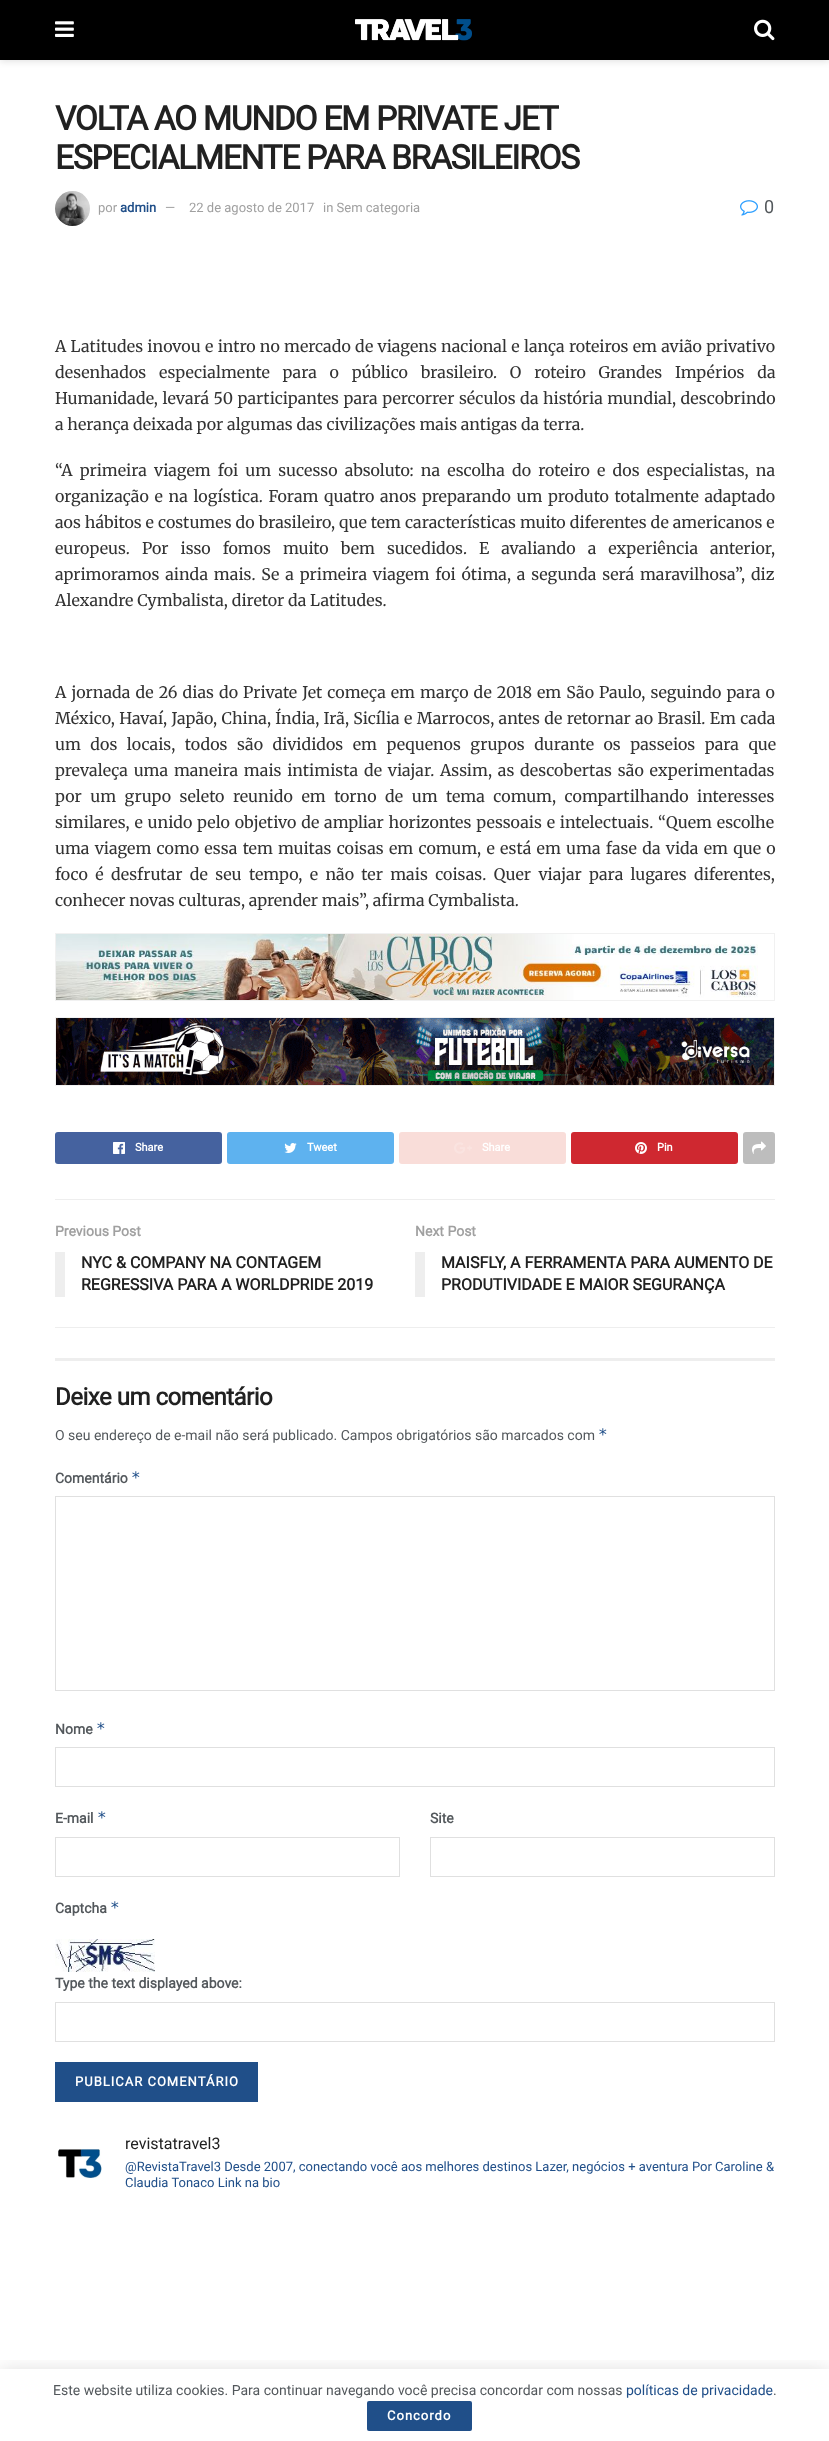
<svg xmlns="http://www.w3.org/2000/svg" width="829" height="2441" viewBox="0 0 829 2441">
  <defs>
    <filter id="blur1" x="-50%" y="-200%" width="200%" height="500%"><feGaussianBlur stdDeviation="3"/></filter>
    <clipPath id="clip1"><rect x="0" y="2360" width="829" height="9"/></clipPath>
    <filter id="blur2" x="-50%" y="-200%" width="200%" height="500%"><feGaussianBlur stdDeviation="10"/></filter>
  </defs>
  <rect width="100%" height="100%" fill="#ffffff"/>
  <rect x="0" y="2" width="829" height="60" fill="#000000" fill-opacity="0.1" filter="url(#blur1)"/>
  <rect x="0" y="0" width="829" height="60" fill="#000000"/>
  <image x="55" y="21" width="19" height="16" href="img1.png"/>
  <image x="355" y="19" width="117" height="22" href="img2.png"/>
  <image x="754" y="19" width="21" height="22" href="img3.png"/>
  <text x="55" y="130" font-family="Roboto" font-size="33.6" font-weight="bold" letter-spacing="-1.35" fill="#212121">VOLTA AO MUNDO EM PRIVATE JET</text>
  <text x="55" y="169" font-family="Roboto" font-size="33.6" font-weight="bold" letter-spacing="-1.35" fill="#212121">ESPECIALMENTE PARA BRASILEIROS</text>
  <image x="55" y="191" width="35" height="35" href="img4.png"/>
  <text x="98" y="212" font-family="Roboto" font-size="13" fill="#a0a0a0">por</text>
  <text x="120" y="212" font-family="Roboto" font-size="13" font-weight="bold" fill="#204f89">admin</text>
  <text x="165" y="212" font-family="Roboto" font-size="13" fill="#a0a0a0">—</text>
  <text x="189" y="212" font-family="Roboto" font-size="13" fill="#a0a0a0">22 de agosto de 2017</text>
  <text x="323" y="212" font-family="Roboto" font-size="13" fill="#a0a0a0">in Sem categoria</text>
  <image x="740" y="200" width="18" height="16" href="img5.png"/>
  <text x="764" y="213" font-family="Roboto" font-size="18" fill="#53585c">0</text>
  <text x="55" y="352" word-spacing="0.5" font-family="Merriweather" font-size="16" font-weight="300" fill="#333333">A Latitudes inovou e intro no mercado de viagens nacional e lança roteiros em avião privativo</text>
  <text x="55" y="378" word-spacing="9" font-family="Merriweather" font-size="16" font-weight="300" fill="#333333">desenhados especialmente para o público brasileiro. O roteiro Grandes Impérios da</text>
  <text x="55" y="404" word-spacing="0.75" font-family="Merriweather" font-size="16" font-weight="300" fill="#333333">Humanidade, levará 50 participantes para percorrer séculos da história mundial, descobrindo</text>
  <text x="55" y="430" font-family="Merriweather" font-size="16" font-weight="300" fill="#333333">a herança deixada por algumas das civilizações mais antigas da terra.</text>
  <text x="55" y="476" word-spacing="3.4" font-family="Merriweather" font-size="16" font-weight="300" fill="#333333">“A primeira viagem foi um sucesso absoluto: na escolha do roteiro e dos especialistas, na</text>
  <text x="55" y="502" word-spacing="1.9" font-family="Merriweather" font-size="16" font-weight="300" fill="#333333">organização e na logística. Foram quatro anos preparando um produto totalmente adaptado</text>
  <text x="55" y="528" word-spacing="0.25" font-family="Merriweather" font-size="16" font-weight="300" fill="#333333">aos hábitos e costumes do brasileiro, que tem características muito diferentes de americanos e</text>
  <text x="55" y="554" word-spacing="8.25" font-family="Merriweather" font-size="16" font-weight="300" fill="#333333">europeus. Por isso fomos muito bem sucedidos. E avaliando a experiência anterior,</text>
  <text x="55" y="580" word-spacing="2.1" font-family="Merriweather" font-size="16" font-weight="300" fill="#333333">aprimoramos ainda mais. Se a primeira viagem foi ótima, a segunda será maravilhosa”, diz</text>
  <text x="55" y="606" font-family="Merriweather" font-size="16" font-weight="300" fill="#333333">Alexandre Cymbalista, diretor da Latitudes.</text>
  <text x="55" y="698" word-spacing="1.25" font-family="Merriweather" font-size="16" font-weight="300" fill="#333333">A jornada de 26 dias do Private Jet começa em março de 2018 em São Paulo, seguindo para o</text>
  <text x="55" y="724" word-spacing="0.6" font-family="Merriweather" font-size="16" font-weight="300" fill="#333333">México, Havaí, Japão, China, Índia, Irã, Sicília e Marrocos, antes de retornar ao Brasil. Em cada</text>
  <text x="55" y="750" word-spacing="5.75" font-family="Merriweather" font-size="16" font-weight="300" fill="#333333">um dos locais, todos são divididos em pequenos grupos durante os passeios para que</text>
  <text x="55" y="776" word-spacing="2" font-family="Merriweather" font-size="16" font-weight="300" fill="#333333">prevaleça uma maneira mais intimista de viajar. Assim, as descobertas são experimentadas</text>
  <text x="55" y="802" word-spacing="4.75" font-family="Merriweather" font-size="16" font-weight="300" fill="#333333">por um grupo seleto reunido em torno de um tema comum, compartilhando interesses</text>
  <text x="55" y="828" word-spacing="1" font-family="Merriweather" font-size="16" font-weight="300" fill="#333333">similares, e unido pelo objetivo de ampliar horizontes pessoais e intelectuais. “Quem escolhe</text>
  <text x="55" y="854" word-spacing="1.5" font-family="Merriweather" font-size="16" font-weight="300" fill="#333333">uma viagem como essa tem muitas coisas em comum, e está em uma fase da vida em que o</text>
  <text x="55" y="880" word-spacing="3.6" font-family="Merriweather" font-size="16" font-weight="300" fill="#333333">foco é desfrutar de seu tempo, e não ter mais coisas. Quer viajar para lugares diferentes,</text>
  <text x="55" y="906" font-family="Merriweather" font-size="16" font-weight="300" fill="#333333">conhecer novas culturas, aprender mais”, afirma Cymbalista.</text>
  <rect x="55.5" y="933.5" width="719" height="67" fill="none" stroke="#f1f1f1"/>
  <image x="56" y="934" width="702" height="66" href="img6.png"/>
  <rect x="55.5" y="1017.5" width="719" height="68" fill="none" stroke="#f1f1f1"/>
  <image x="56" y="1018" width="718" height="67" href="img7.png"/>
  <rect x="55" y="1132" width="167" height="32" rx="3" fill="#45629f"/>
  <image x="113" y="1142" width="12" height="12" href="img8.png"/>
  <text x="135" y="1151" font-family="Roboto" font-size="11" font-weight="bold" fill="#ffffff">Share</text>
  <rect x="227" y="1132" width="167" height="32" rx="3" fill="#5eb2ef"/>
  <image x="284" y="1143" width="13" height="10" href="img9.png"/>
  <text x="307" y="1151" font-family="Roboto" font-size="11" font-weight="bold" fill="#ffffff">Tweet</text>
  <rect x="399" y="1132" width="167" height="32" rx="3" fill="#f9ddd9"/>
  <image x="454" y="1142" width="18" height="12" href="img10.png"/>
  <text x="482" y="1151" font-family="Roboto" font-size="11" font-weight="bold" fill="#ffffff">Share</text>
  <rect x="571" y="1132" width="167" height="32" rx="3" fill="#cf2830"/>
  <image x="635" y="1142" width="12" height="12" href="img11.png"/>
  <text x="657" y="1151" font-family="Roboto" font-size="11" font-weight="bold" fill="#ffffff">Pin</text>
  <rect x="743" y="1132" width="32" height="32" rx="3" fill="#bdbdbd"/>
  <image x="752" y="1141" width="14" height="13" href="img12.png"/>
  <rect x="55" y="1199" width="720" height="1" fill="#eeeeee"/>
  <rect x="55" y="1327" width="720" height="1" fill="#eeeeee"/>
  <text x="55" y="1236" font-family="Roboto" font-size="14" font-weight="bold" fill="#a0a0a0">Previous Post</text>
  <rect x="55" y="1252" width="10" height="45" fill="#eeeeee"/>
  <text x="81" y="1268" font-family="Roboto" font-size="16" font-weight="bold" fill="#212121">NYC &amp; COMPANY NA CONTAGEM</text>
  <text x="81" y="1290" font-family="Roboto" font-size="16" font-weight="bold" fill="#212121">REGRESSIVA PARA A WORLDPRIDE 2019</text>
  <text x="415" y="1236" font-family="Roboto" font-size="14" font-weight="bold" fill="#a0a0a0">Next Post</text>
  <rect x="415" y="1252" width="10" height="45" fill="#eeeeee"/>
  <text x="441" y="1268" font-family="Roboto" font-size="16" font-weight="bold" fill="#212121">MAISFLY, A FERRAMENTA PARA AUMENTO DE</text>
  <text x="441" y="1290" font-family="Roboto" font-size="16" font-weight="bold" fill="#212121">PRODUTIVIDADE E MAIOR SEGURANÇA</text>
  <rect x="55" y="1358" width="720" height="3" fill="#eeeeee"/>
  <text x="55" y="1405" font-family="Roboto" font-size="24" font-weight="bold" letter-spacing="-0.5" fill="#212121">Deixe um comentário</text>
  <text x="55" y="1440" font-family="Roboto" font-size="14" fill="#53585c">O seu endereço de e-mail não será publicado. Campos obrigatórios são marcados com</text>
  <text x="598" y="1440" font-family="DejaVu Sans Mono" font-size="16" fill="#204f89">*</text>
  <text x="55" y="1483" font-family="Roboto" font-size="14" font-weight="bold" fill="#53585c">Comentário</text>
  <text x="131" y="1483" font-family="DejaVu Sans Mono" font-size="16" fill="#204f89">*</text>
  <rect x="55.5" y="1496.5" width="719" height="194" fill="none" stroke="#e0e0e0"/>
  <text x="55" y="1734" font-family="Roboto" font-size="14" font-weight="bold" fill="#53585c">Nome</text>
  <text x="96" y="1734" font-family="DejaVu Sans Mono" font-size="16" fill="#204f89">*</text>
  <rect x="55.5" y="1747.5" width="719" height="39" fill="none" stroke="#e0e0e0"/>
  <text x="55" y="1823" font-family="Roboto" font-size="14" font-weight="bold" fill="#53585c">E-mail</text>
  <text x="97" y="1823" font-family="DejaVu Sans Mono" font-size="16" fill="#204f89">*</text>
  <rect x="55.5" y="1837.5" width="344" height="39" fill="none" stroke="#e0e0e0"/>
  <text x="430" y="1823" font-family="Roboto" font-size="14" font-weight="bold" fill="#53585c">Site</text>
  <rect x="430.5" y="1837.5" width="344" height="39" fill="none" stroke="#e0e0e0"/>
  <text x="55" y="1913" font-family="Roboto" font-size="14" font-weight="bold" fill="#53585c">Captcha</text>
  <text x="110" y="1913" font-family="DejaVu Sans Mono" font-size="16" fill="#204f89">*</text>
  <image x="55" y="1939" width="100" height="33" href="img13.png"/>
  <text x="55" y="1988" font-family="Roboto" font-size="14" font-weight="bold" fill="#53585c">Type the text displayed above:</text>
  <rect x="55.5" y="2002.5" width="719" height="39" fill="none" stroke="#e0e0e0"/>
  <rect x="55" y="2062" width="203" height="40" fill="#204f89"/>
  <text x="75" y="2086" font-family="Roboto" font-size="13" font-weight="bold" letter-spacing="1" fill="#ffffff">PUBLICAR COMENTÁRIO</text>
  <image x="58" y="2149" width="44" height="30" href="img14.png"/>
  <text x="125" y="2149" font-family="Roboto" font-size="16" fill="#212121">revistatravel3</text>
  <text x="125" y="2171" font-family="Roboto" font-size="13" fill="#204f89">@RevistaTravel3 Desde 2007, conectando você aos melhores destinos Lazer, negócios + aventura Por Caroline &amp;</text>
  <text x="125" y="2187" font-family="Roboto" font-size="13" fill="#204f89">Claudia Tonaco Link na bio</text>
  <g clip-path="url(#clip1)">
    <rect x="0" y="2371" width="829" height="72" fill="#000000" fill-opacity="0.15" filter="url(#blur2)"/>
  </g>
  <text x="53" y="2395" font-family="Roboto" font-size="14" fill="#53585c">Este website utiliza cookies. Para continuar navegando você precisa concordar com nossas</text>
  <text x="626" y="2395" font-family="Roboto" font-size="14" fill="#204f89">políticas de privacidade</text>
  <text x="773" y="2395" font-family="Roboto" font-size="14" fill="#53585c">.</text>
  <rect x="367" y="2401" width="105" height="30" rx="2" fill="#204f89"/>
  <text x="387" y="2420" font-family="Roboto" font-size="13" font-weight="bold" letter-spacing="1" fill="#ffffff">Concordo</text>
</svg>
